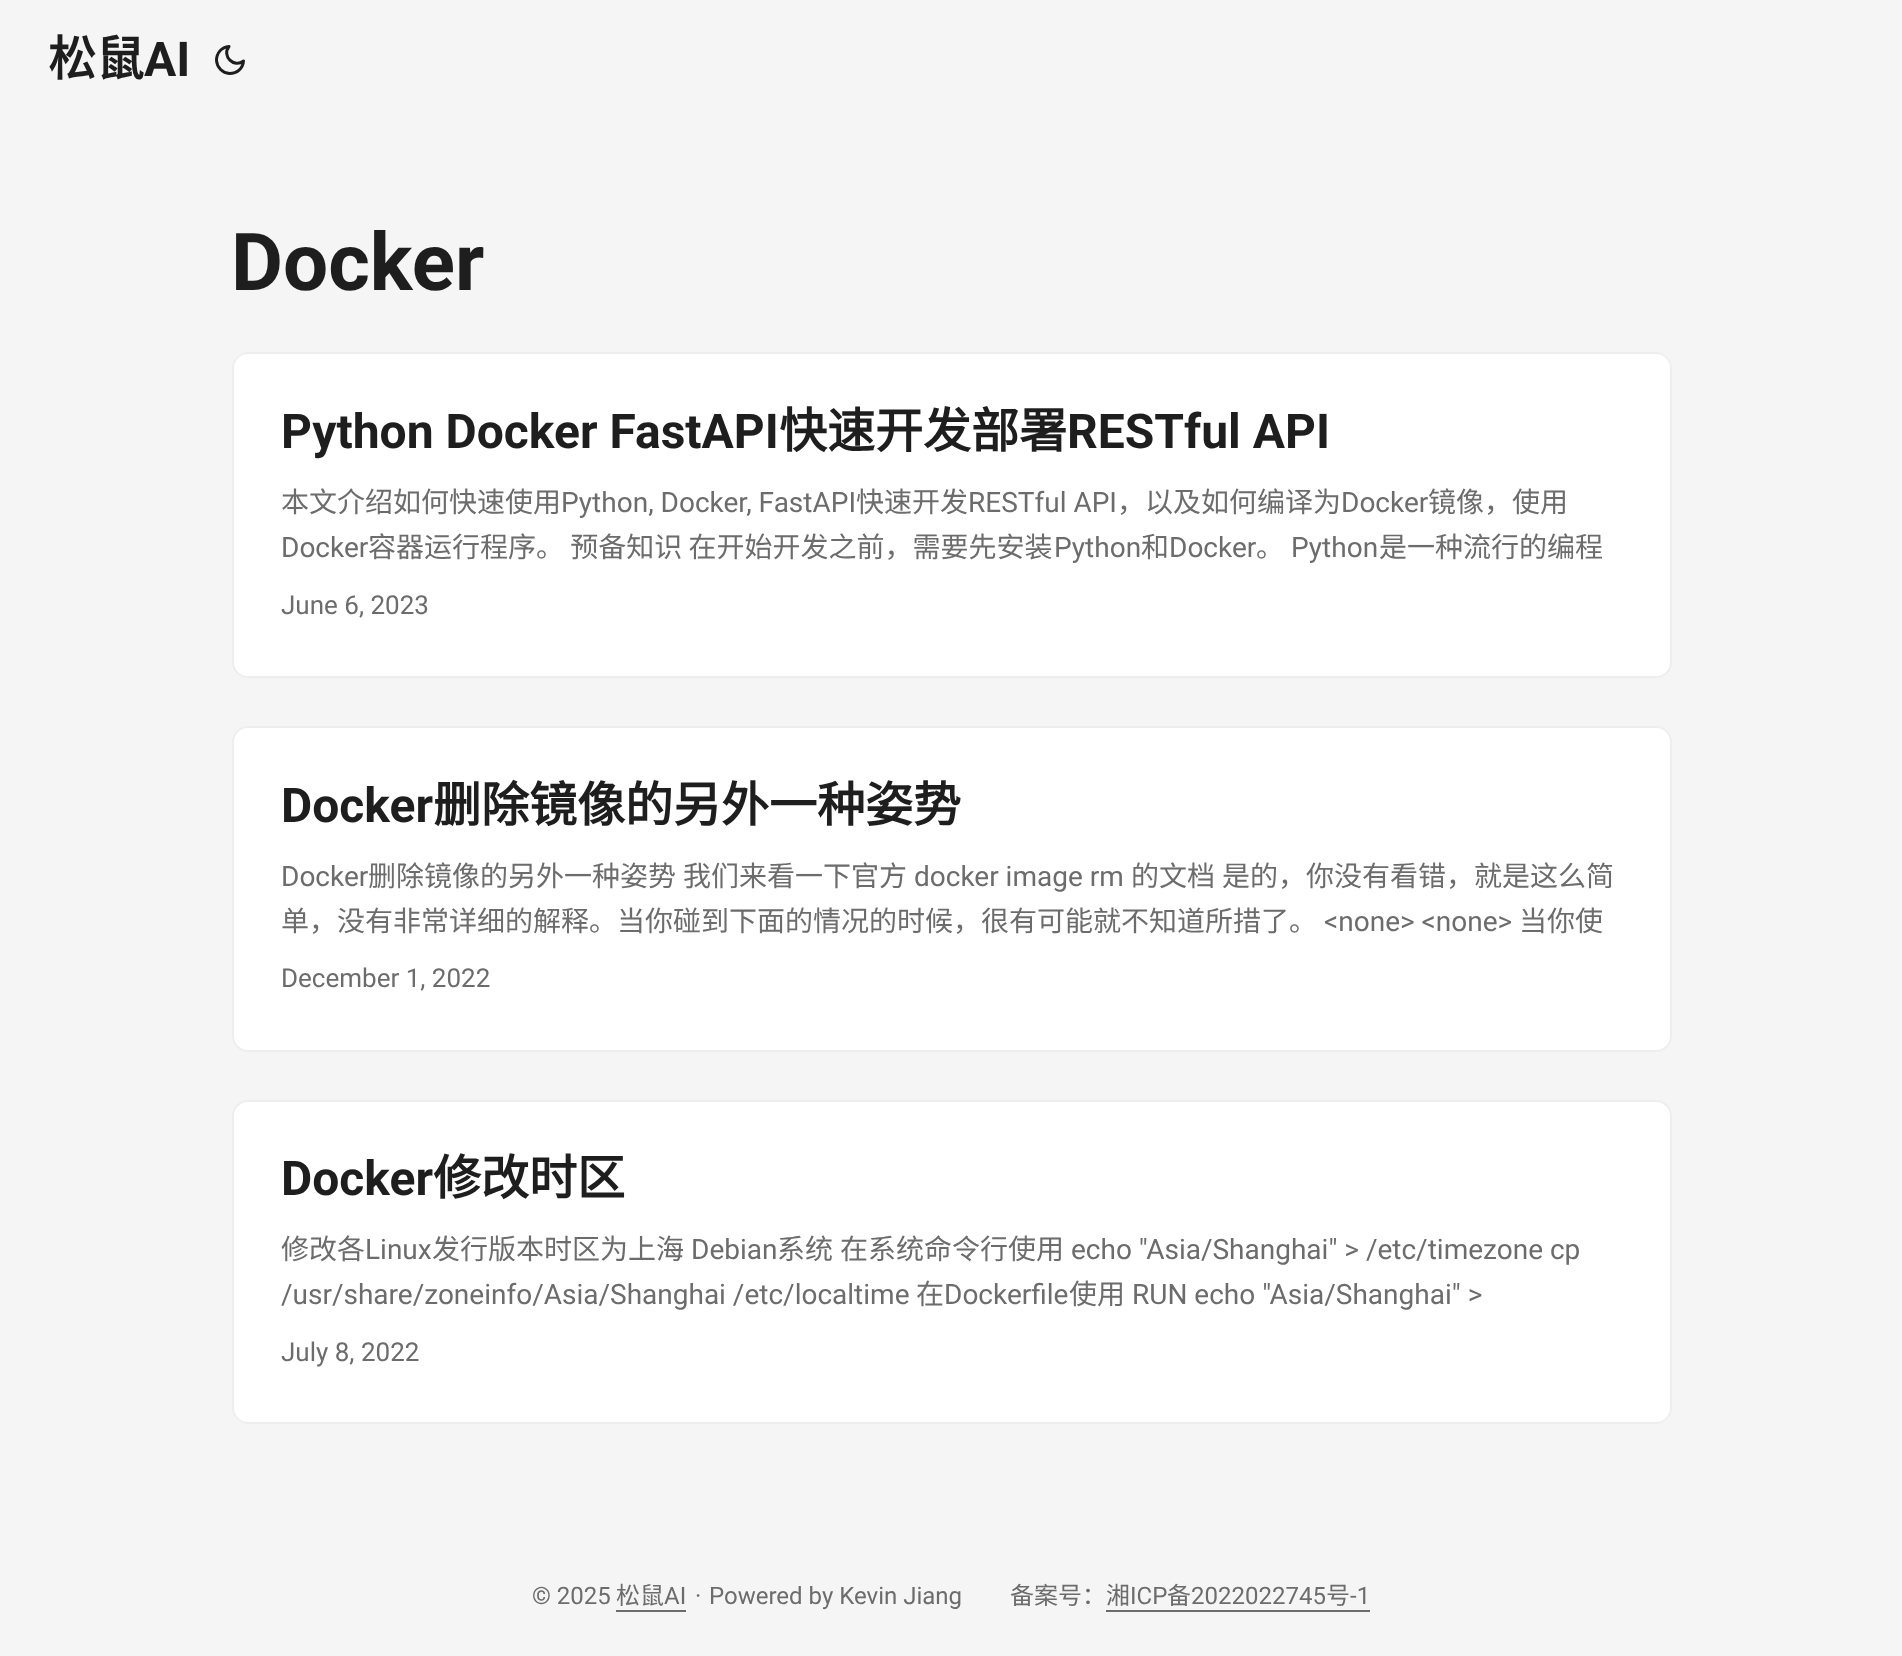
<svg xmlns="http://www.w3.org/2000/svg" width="1902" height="1656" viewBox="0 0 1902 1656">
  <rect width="100%" height="100%" fill="#f5f5f5"/>
  <text x="48" y="76" font-family="Noto Sans CJK SC" font-size="48" font-weight="bold" fill="#1e1e1e">松鼠</text>
  <text x="144" y="76" font-family="Roboto" font-size="48" font-weight="bold" fill="#1e1e1e">AI</text>
  <path d="M243.5 61C243 68.5 237 73.5 229.5 73.5C222.5 73 217 67.5 216.5 60.5C216.5 53 221.5 47 229 46.5C221.5 56 234 68.5 243.5 61Z" fill="none" stroke="#1e1e1e" stroke-width="3" stroke-linecap="round" stroke-linejoin="round"/>
  <text x="231" y="290" font-family="Roboto" font-size="80" font-weight="bold" fill="#1e1e1e">Docker</text>
  <rect x="233" y="353" width="1438" height="324" rx="15" fill="#ffffff" stroke="#eeeeee" stroke-width="2"/>
  <text x="281" y="448" font-family="Roboto" font-size="48" font-weight="bold" fill="#1e1e1e">Python Docker FastAPI</text>
  <text x="779" y="448" font-family="Noto Sans CJK SC" font-size="48" font-weight="bold" fill="#1e1e1e">快速开发部署</text>
  <text x="1067" y="448" font-family="Roboto" font-size="48" font-weight="bold" fill="#1e1e1e">RESTful API</text>
  <text x="281" y="512" font-family="Noto Sans CJK SC" font-size="28" fill="#6c6c6c">本文介绍如何快速使用</text>
  <text x="561" y="512" font-family="Roboto" font-size="28" fill="#6c6c6c">Python, Docker, FastAPI</text>
  <text x="856" y="512" font-family="Noto Sans CJK SC" font-size="28" fill="#6c6c6c">快速开发</text>
  <text x="968" y="512" font-family="Roboto" font-size="28" fill="#6c6c6c">RESTful API</text>
  <text x="1117" y="512" font-family="Noto Sans CJK SC" font-size="28" fill="#6c6c6c">，以及如何编译为</text>
  <text x="1341" y="512" font-family="Roboto" font-size="28" fill="#6c6c6c">Docker</text>
  <text x="1428" y="512" font-family="Noto Sans CJK SC" font-size="28" fill="#6c6c6c">镜像，使用</text>
  <text x="281" y="557" font-family="Roboto" font-size="28" fill="#6c6c6c">Docker</text>
  <text x="368" y="557" font-family="Noto Sans CJK SC" font-size="28" fill="#6c6c6c">容器运行程序。 预备知识 在开始开发之前，需要先安装</text>
  <text x="1054" y="557" font-family="Roboto" font-size="28" fill="#6c6c6c">Python</text>
  <text x="1141" y="557" font-family="Noto Sans CJK SC" font-size="28" fill="#6c6c6c">和</text>
  <text x="1169" y="557" font-family="Roboto" font-size="28" fill="#6c6c6c">Docker</text>
  <text x="1256" y="557" font-family="Noto Sans CJK SC" font-size="28" fill="#6c6c6c">。</text>
  <text x="1291" y="557" font-family="Roboto" font-size="28" fill="#6c6c6c">Python</text>
  <text x="1379" y="557" font-family="Noto Sans CJK SC" font-size="28" fill="#6c6c6c">是一种流行的编程</text>
  <text x="281" y="614" font-family="Roboto" font-size="26" fill="#6c6c6c">June 6, 2023</text>
  <rect x="233" y="727" width="1438" height="324" rx="15" fill="#ffffff" stroke="#eeeeee" stroke-width="2"/>
  <text x="281" y="822" font-family="Roboto" font-size="48" font-weight="bold" fill="#1e1e1e">Docker</text>
  <text x="433" y="822" font-family="Noto Sans CJK SC" font-size="48" font-weight="bold" fill="#1e1e1e">删除镜像的另外一种姿势</text>
  <text x="281" y="886" font-family="Roboto" font-size="28" fill="#6c6c6c">Docker</text>
  <text x="368" y="886" font-family="Noto Sans CJK SC" font-size="28" fill="#6c6c6c">删除镜像的另外一种姿势</text>
  <text x="683" y="886" font-family="Noto Sans CJK SC" font-size="28" fill="#6c6c6c">我们来看一下官方</text>
  <text x="914" y="886" font-family="Roboto" font-size="28" fill="#6c6c6c">docker image rm</text>
  <text x="1131" y="886" font-family="Noto Sans CJK SC" font-size="28" fill="#6c6c6c">的文档</text>
  <text x="1222" y="886" font-family="Noto Sans CJK SC" font-size="28" fill="#6c6c6c">是的，你没有看错，就是这么简</text>
  <text x="281" y="931" font-family="Noto Sans CJK SC" font-size="28" fill="#6c6c6c">单，没有非常详细的解释。当你碰到下面的情况的时候，很有可能就不知道所措了。</text>
  <text x="1324" y="931" font-family="Roboto" font-size="28" fill="#6c6c6c">&lt;none&gt; &lt;none&gt;</text>
  <text x="1519" y="931" font-family="Noto Sans CJK SC" font-size="28" fill="#6c6c6c">当你使</text>
  <text x="281" y="987" font-family="Roboto" font-size="26" fill="#6c6c6c">December 1, 2022</text>
  <rect x="233" y="1101" width="1438" height="322" rx="15" fill="#ffffff" stroke="#eeeeee" stroke-width="2"/>
  <text x="281" y="1195" font-family="Roboto" font-size="48" font-weight="bold" fill="#1e1e1e">Docker</text>
  <text x="433" y="1195" font-family="Noto Sans CJK SC" font-size="48" font-weight="bold" fill="#1e1e1e">修改时区</text>
  <text x="281" y="1259" font-family="Noto Sans CJK SC" font-size="28" fill="#6c6c6c">修改各</text>
  <text x="365" y="1259" font-family="Roboto" font-size="28" fill="#6c6c6c">Linux</text>
  <text x="432" y="1259" font-family="Noto Sans CJK SC" font-size="28" fill="#6c6c6c">发行版本时区为上海</text>
  <text x="691" y="1259" font-family="Roboto" font-size="28" fill="#6c6c6c">Debian</text>
  <text x="777" y="1259" font-family="Noto Sans CJK SC" font-size="28" fill="#6c6c6c">系统</text>
  <text x="840" y="1259" font-family="Noto Sans CJK SC" font-size="28" fill="#6c6c6c">在系统命令行使用</text>
  <text x="1071" y="1259" font-family="Roboto" font-size="28" fill="#6c6c6c">echo "Asia/Shanghai" &gt; /etc/timezone cp</text>
  <text x="281" y="1304" font-family="Roboto" font-size="28" fill="#6c6c6c">/usr/share/zoneinfo/Asia/Shanghai /etc/localtime</text>
  <text x="916" y="1304" font-family="Noto Sans CJK SC" font-size="28" fill="#6c6c6c">在</text>
  <text x="944" y="1304" font-family="Roboto" font-size="28" fill="#6c6c6c">Dockerfile</text>
  <text x="1069" y="1304" font-family="Noto Sans CJK SC" font-size="28" fill="#6c6c6c">使用</text>
  <text x="1132" y="1304" font-family="Roboto" font-size="28" fill="#6c6c6c">RUN echo "Asia/Shanghai" &gt;</text>
  <text x="281" y="1361" font-family="Roboto" font-size="26" fill="#6c6c6c">July 8, 2022</text>
  <text x="532" y="1604" font-family="Roboto" font-size="24" fill="#6c6c6c">© 2025</text>
  <text x="616" y="1604" font-family="Noto Sans CJK SC" font-size="24" fill="#6c6c6c">松鼠</text>
  <text x="664" y="1604" font-family="Roboto" font-size="24" fill="#6c6c6c">AI</text>
  <rect x="616" y="1610" width="70" height="2" fill="#6c6c6c"/>
  <text x="695" y="1604" font-family="Roboto" font-size="24" fill="#6c6c6c">·</text>
  <text x="709" y="1604" font-family="Roboto" font-size="24" fill="#6c6c6c">Powered by Kevin Jiang</text>
  <text x="1010" y="1604" font-family="Noto Sans CJK SC" font-size="24" fill="#6c6c6c">备案号：湘</text>
  <text x="1130" y="1604" font-family="Roboto" font-size="24" fill="#6c6c6c">ICP</text>
  <rect x="1106" y="1610" width="264" height="2" fill="#6c6c6c"/>
  <text x="1167" y="1604" font-family="Noto Sans CJK SC" font-size="24" fill="#6c6c6c">备</text>
  <text x="1191" y="1604" font-family="Roboto" font-size="24" fill="#6c6c6c">2022022745</text>
  <text x="1326" y="1604" font-family="Noto Sans CJK SC" font-size="24" fill="#6c6c6c">号</text>
  <text x="1350" y="1604" font-family="Roboto" font-size="24" fill="#6c6c6c">-1</text>
</svg>
